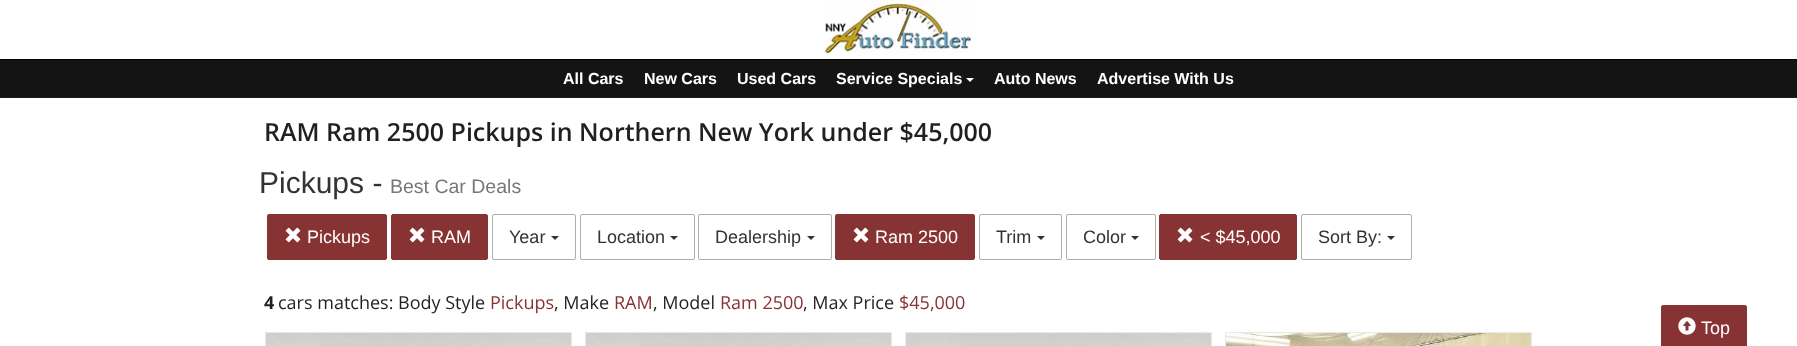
<svg xmlns="http://www.w3.org/2000/svg" width="1797" height="346" viewBox="0 0 1797 346">
  <rect width="100%" height="100%" fill="#ffffff"/>
  <rect x="0" y="59" width="1797" height="1" fill="#000000"/>
  <image x="824" y="0" width="150" height="54" href="img1.png"/>
  <rect x="0" y="60" width="1797" height="37" fill="#141414"/>
  <rect x="0" y="97" width="1797" height="1" fill="#1e1e1e"/>
  <text x="563" y="84" font-family="Liberation Sans" font-size="16" font-weight="bold" fill="#ffffff">All Cars</text>
  <text x="644" y="84" font-family="Liberation Sans" font-size="16" font-weight="bold" fill="#ffffff">New Cars</text>
  <text x="737" y="84" font-family="Liberation Sans" font-size="16" font-weight="bold" fill="#ffffff">Used Cars</text>
  <text x="836" y="84" font-family="Liberation Sans" font-size="16" font-weight="bold" fill="#ffffff">Service Specials</text>
  <path d="M966 78H974L970 82Z" fill="#ffffff"/>
  <text x="994" y="84" font-family="Liberation Sans" font-size="16" font-weight="bold" fill="#ffffff">Auto News</text>
  <text x="1097" y="84" font-family="Liberation Sans" font-size="16" font-weight="bold" fill="#ffffff">Advertise With Us</text>
  <text x="264" y="141" font-family="Open Sans" font-size="25" font-weight="600" fill="#231f20">RAM Ram 2500 Pickups in Northern New York under $45,000</text>
  <text x="259" y="193" font-family="Liberation Sans" font-size="30" fill="#333333">Pickups -</text>
  <text x="390" y="193" font-family="Liberation Sans" font-size="19.5" fill="#777777">Best Car Deals</text>
  <rect x="267.5" y="214.5" width="119" height="45" rx="1.5" fill="#883333" stroke="#883333"/>
  <image x="285" y="227" width="16" height="16" href="img2.png"/>
  <text x="307" y="243" font-family="Liberation Sans" font-size="18" fill="#ffffff">Pickups</text>
  <rect x="391.5" y="214.5" width="96" height="45" rx="1.5" fill="#883333" stroke="#883333"/>
  <image x="409" y="227" width="16" height="16" href="img2.png"/>
  <text x="431" y="243" font-family="Liberation Sans" font-size="18" fill="#ffffff">RAM</text>
  <rect x="492.5" y="214.5" width="83" height="45" rx="1.5" fill="none" stroke="#adadad"/>
  <text x="509" y="243" font-family="Liberation Sans" font-size="18" fill="#333333">Year</text>
  <path d="M551 236H559L555 240Z" fill="#333333"/>
  <rect x="580.5" y="214.5" width="114" height="45" rx="1.5" fill="none" stroke="#adadad"/>
  <text x="597" y="243" font-family="Liberation Sans" font-size="18" fill="#333333">Location</text>
  <path d="M670 236H678L674 240Z" fill="#333333"/>
  <rect x="698.5" y="214.5" width="133" height="45" rx="1.5" fill="none" stroke="#adadad"/>
  <text x="715" y="243" font-family="Liberation Sans" font-size="18" fill="#333333">Dealership</text>
  <path d="M807 236H815L811 240Z" fill="#333333"/>
  <rect x="835.5" y="214.5" width="139" height="45" rx="1.5" fill="#883333" stroke="#883333"/>
  <image x="853" y="227" width="16" height="16" href="img2.png"/>
  <text x="875" y="243" font-family="Liberation Sans" font-size="18" fill="#ffffff">Ram 2500</text>
  <rect x="979.5" y="214.5" width="82" height="45" rx="1.5" fill="none" stroke="#adadad"/>
  <text x="996" y="243" font-family="Liberation Sans" font-size="18" fill="#333333">Trim</text>
  <path d="M1037 236H1045L1041 240Z" fill="#333333"/>
  <rect x="1066.5" y="214.5" width="89" height="45" rx="1.5" fill="none" stroke="#adadad"/>
  <text x="1083" y="243" font-family="Liberation Sans" font-size="18" fill="#333333">Color</text>
  <path d="M1131 236H1139L1135 240Z" fill="#333333"/>
  <rect x="1159.5" y="214.5" width="137" height="45" rx="1.5" fill="#883333" stroke="#883333"/>
  <image x="1177" y="227" width="16" height="16" href="img2.png"/>
  <text x="1200" y="243" font-family="Liberation Sans" font-size="18" fill="#ffffff">&lt; $45,000</text>
  <rect x="1301.5" y="214.5" width="110" height="45" rx="1.5" fill="none" stroke="#adadad"/>
  <text x="1318" y="243" font-family="Liberation Sans" font-size="18" fill="#333333">Sort By:</text>
  <path d="M1387 236H1395L1391 240Z" fill="#333333"/>
  <text x="264" y="309" font-family="Open Sans" font-size="18" font-weight="bold" fill="#231f20">4</text>
  <text x="278" y="309" font-family="Open Sans" font-size="18" fill="#231f20">cars matches: Body Style</text>
  <text x="490" y="309" font-family="Open Sans" font-size="18" fill="#883333">Pickups</text>
  <text x="554" y="309" font-family="Open Sans" font-size="18" fill="#231f20">, Make</text>
  <text x="614" y="309" font-family="Open Sans" font-size="18" fill="#883333">RAM</text>
  <text x="653" y="309" font-family="Open Sans" font-size="18" fill="#231f20">, Model</text>
  <text x="720" y="309" font-family="Open Sans" font-size="18" fill="#883333">Ram 2500</text>
  <text x="803" y="309" font-family="Open Sans" font-size="18" fill="#231f20">, Max Price</text>
  <text x="899" y="309" font-family="Open Sans" font-size="18" fill="#883333">$45,000</text>
  <rect x="265.5" y="332.5" width="306" height="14" fill="none" stroke="#e6eaea"/>
  <image x="266" y="333" width="305" height="13" href="img3.png"/>
  <rect x="585.5" y="332.5" width="306" height="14" fill="none" stroke="#e6eaea"/>
  <image x="586" y="333" width="305" height="13" href="img3.png"/>
  <rect x="905.5" y="332.5" width="306" height="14" fill="none" stroke="#e6eaea"/>
  <image x="906" y="333" width="305" height="13" href="img4.png"/>
  <rect x="1225.5" y="332.5" width="306" height="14" fill="none" stroke="#e6eaea"/>
  <image x="1226" y="333" width="305" height="13" href="img5.png"/>
  <rect x="1661.5" y="305.5" width="85" height="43" rx="1.5" fill="#883333" stroke="#883333"/>
  <image x="1678" y="317" width="18" height="18" href="img6.png"/>
  <text x="1701" y="334" font-family="Liberation Sans" font-size="18" fill="#ffffff">Top</text>
</svg>
